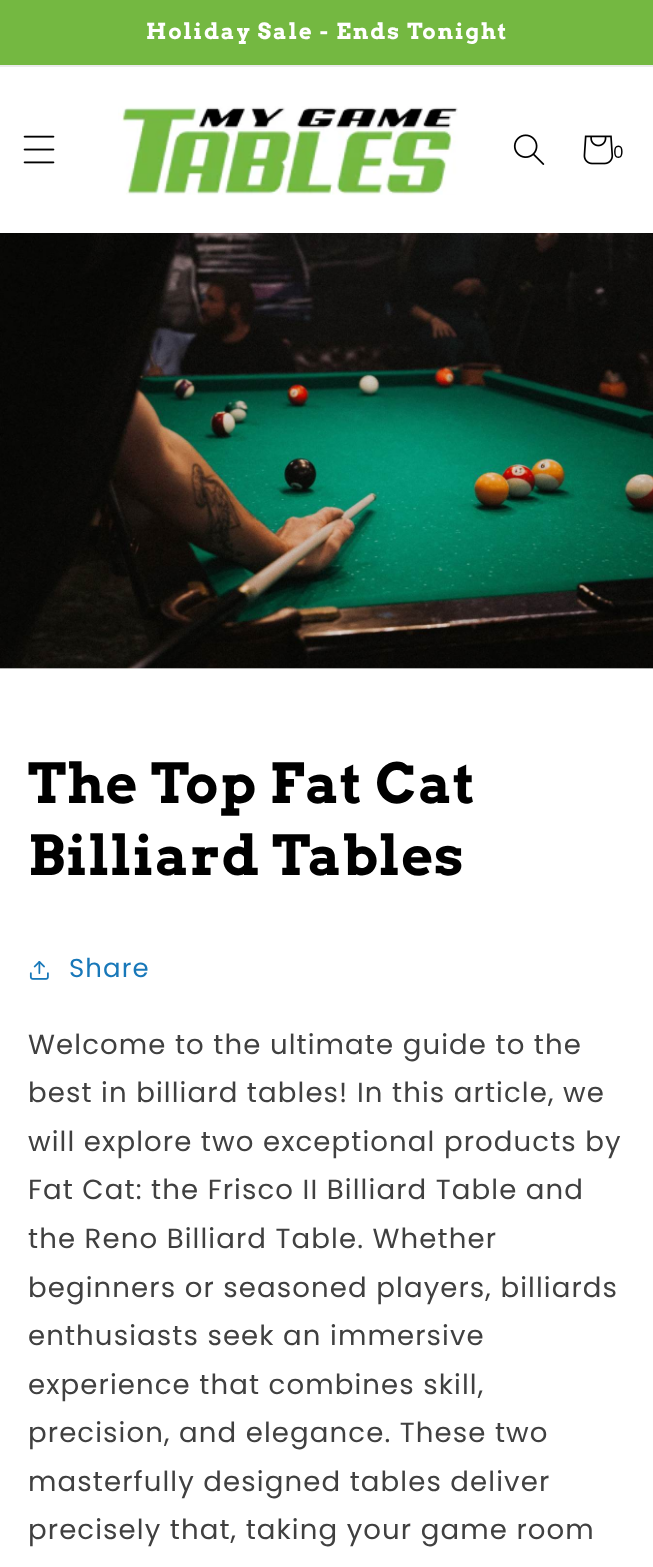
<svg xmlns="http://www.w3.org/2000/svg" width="653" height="1567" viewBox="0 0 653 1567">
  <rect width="100%" height="100%" fill="#ffffff"/>
  <rect x="0" y="65" width="653" height="2" fill="#ebebeb"/>
  <rect x="0" y="0" width="653" height="65" fill="#74b841"/>
  <text x="146" y="39" font-family="Arvo" font-size="22" font-weight="bold" letter-spacing="1.85" fill="#ffffff">Holiday Sale - Ends Tonight</text>
  <image x="23" y="135" width="32" height="29" href="img1.png"/>
  <image x="118" y="106" width="340" height="89" href="img2.png"/>
  <image x="513" y="134" width="32" height="31" href="img3.png"/>
  <image x="583" y="135" width="31" height="30" href="img4.png"/>
  <text x="613" y="158" font-family="Poppins" font-size="17" letter-spacing="1.1" fill="#000000">0</text>
  <rect x="0" y="668" width="653" height="1" fill="#e6e6e6"/>
  <image x="0" y="233" width="653" height="436" href="img5.png"/>
  <text x="28" y="803" font-family="Arvo" font-size="55" font-weight="bold" letter-spacing="1.1" fill="#000000">The Top Fat Cat</text>
  <text x="28" y="875" font-family="Arvo" font-size="55" font-weight="bold" letter-spacing="1.1" fill="#000000">Billiard Tables</text>
  <image x="29" y="961" width="20" height="19" href="img6.png"/>
  <text x="69" y="977" font-family="Poppins" font-size="26" letter-spacing="1.1" fill="#1878b9">Share</text>
  <text x="28" y="1054" font-family="Poppins" font-size="27.6" letter-spacing="1.1" fill="#404040">Welcome to the ultimate guide to the</text>
  <text x="28" y="1102" font-family="Poppins" font-size="27.6" letter-spacing="1.1" fill="#404040">best in billiard tables! In this article, we</text>
  <text x="28" y="1151" font-family="Poppins" font-size="27.6" letter-spacing="1.1" fill="#404040">will explore two exceptional products by</text>
  <text x="28" y="1199" font-family="Poppins" font-size="27.6" letter-spacing="1.1" fill="#404040">Fat Cat: the Frisco II Billiard Table and</text>
  <text x="28" y="1248" font-family="Poppins" font-size="27.6" letter-spacing="1.1" fill="#404040">the Reno Billiard Table. Whether</text>
  <text x="28" y="1297" font-family="Poppins" font-size="27.6" letter-spacing="1.1" fill="#404040">beginners or seasoned players, billiards</text>
  <text x="28" y="1345" font-family="Poppins" font-size="27.6" letter-spacing="1.1" fill="#404040">enthusiasts seek an immersive</text>
  <text x="28" y="1394" font-family="Poppins" font-size="27.6" letter-spacing="1.1" fill="#404040">experience that combines skill,</text>
  <text x="28" y="1442" font-family="Poppins" font-size="27.6" letter-spacing="1.1" fill="#404040">precision, and elegance. These two</text>
  <text x="28" y="1491" font-family="Poppins" font-size="27.6" letter-spacing="1.1" fill="#404040">masterfully designed tables deliver</text>
  <text x="28" y="1539" font-family="Poppins" font-size="27.6" letter-spacing="1.1" fill="#404040">precisely that, taking your game room</text>
</svg>
